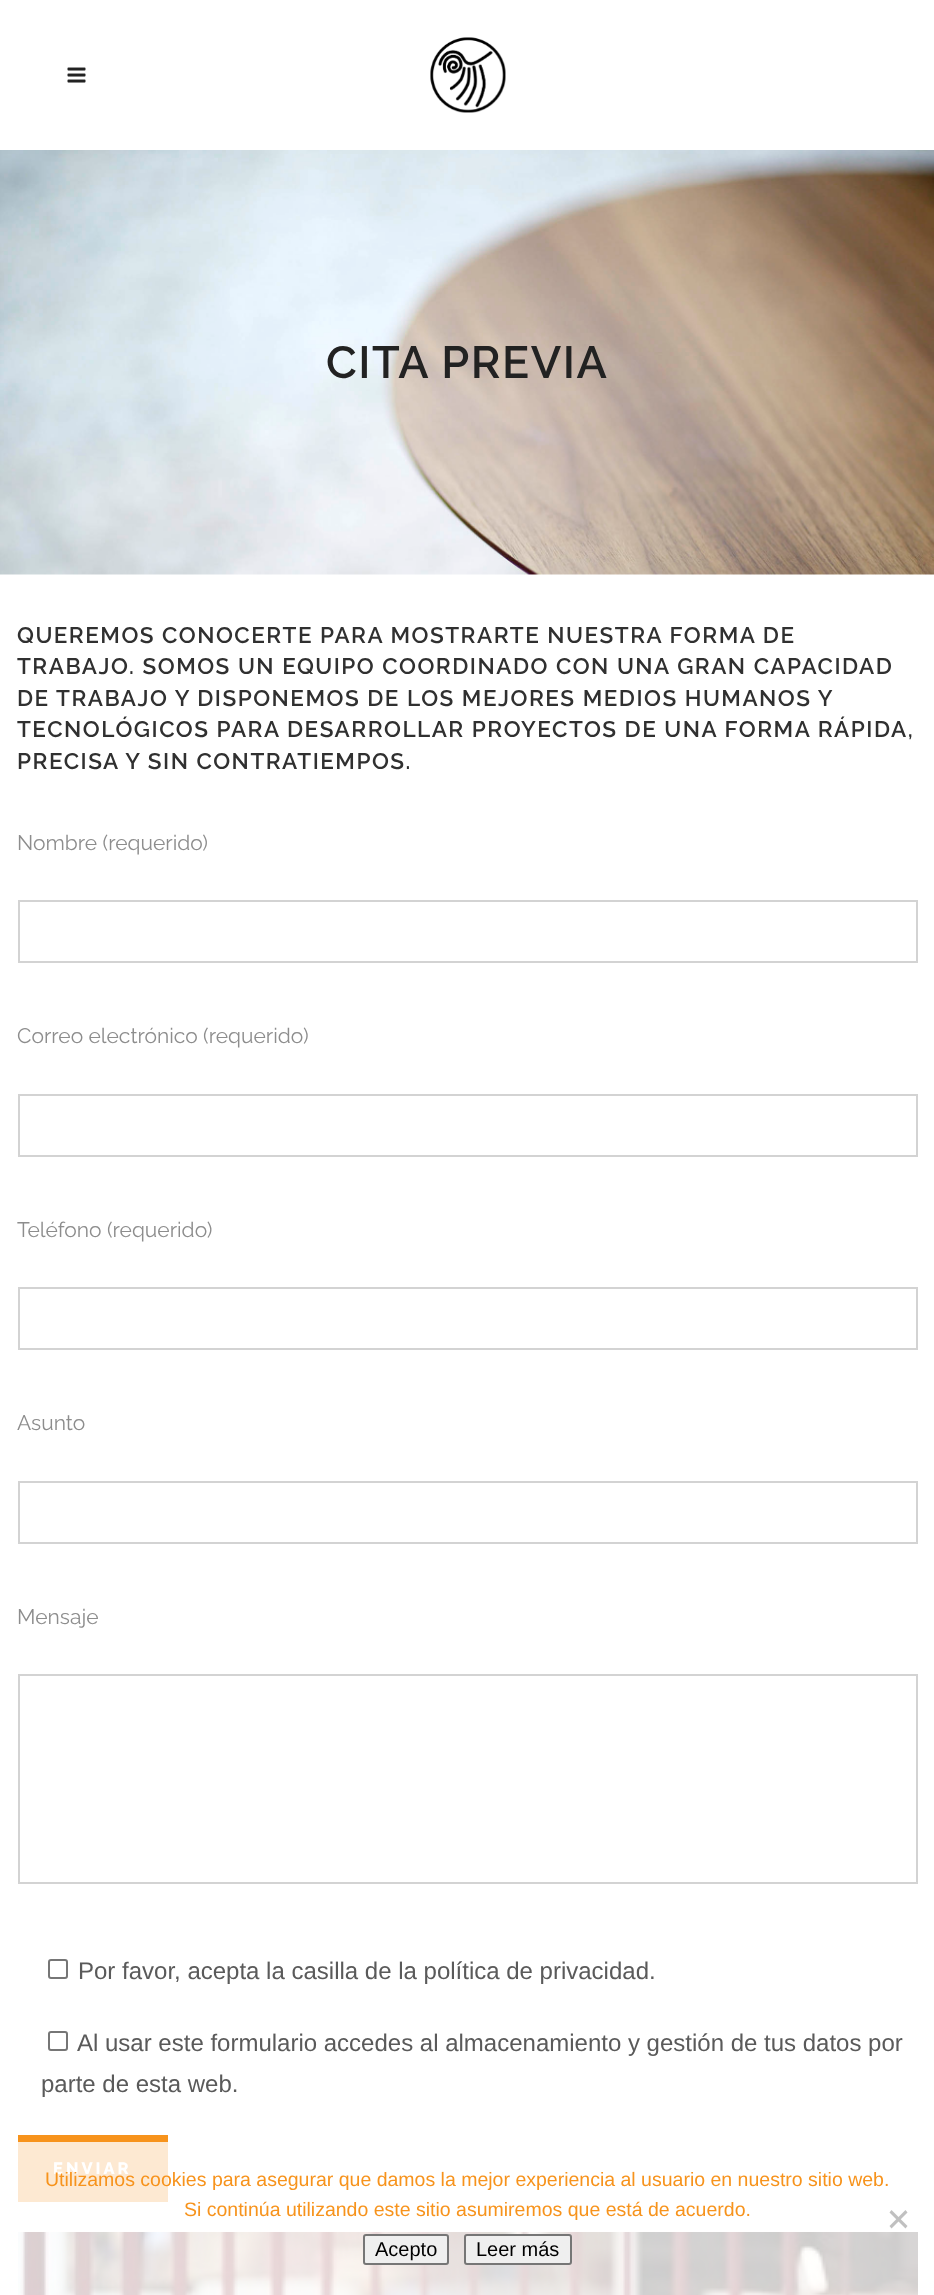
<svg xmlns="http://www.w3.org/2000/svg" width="934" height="2295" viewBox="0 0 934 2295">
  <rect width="100%" height="100%" fill="#ffffff"/>
  <image x="67" y="67" width="19" height="16" href="img1.png"/>
  <image x="430" y="37" width="76" height="76" href="img2.png"/>
  <image x="0" y="150" width="934" height="425" href="img3.png"/>
  <text x="326" y="378" font-family="Raleway" font-size="45" font-weight="600" letter-spacing="1.5" fill="#222222">CITA PREVIA</text>
  <text x="17" y="643" font-family="Raleway" font-size="22.5" font-weight="600" letter-spacing="1.5" fill="#303030">QUEREMOS CONOCERTE PARA MOSTRARTE NUESTRA FORMA DE</text>
  <text x="17" y="674" font-family="Raleway" font-size="22.5" font-weight="600" letter-spacing="1.5" fill="#303030">TRABAJO. SOMOS UN EQUIPO COORDINADO CON UNA GRAN CAPACIDAD</text>
  <text x="17" y="706" font-family="Raleway" font-size="22.5" font-weight="600" letter-spacing="1.5" fill="#303030">DE TRABAJO Y DISPONEMOS DE LOS MEJORES MEDIOS HUMANOS Y</text>
  <text x="17" y="737" font-family="Raleway" font-size="22.5" font-weight="600" letter-spacing="1.5" fill="#303030">TECNOLÓGICOS PARA DESARROLLAR PROYECTOS DE UNA FORMA RÁPIDA,</text>
  <text x="17" y="769" font-family="Raleway" font-size="22.5" font-weight="600" letter-spacing="1.5" fill="#303030">PRECISA Y SIN CONTRATIEMPOS.</text>
  <text x="17" y="850" font-family="Raleway" font-size="21" fill="#8d8d8d">Nombre (requerido)</text>
  <rect x="19" y="901" width="898" height="61" fill="none" stroke="#d3d3d3" stroke-width="2"/>
  <text x="17" y="1043" font-family="Raleway" font-size="21" fill="#8d8d8d">Correo electrónico (requerido)</text>
  <rect x="19" y="1095" width="898" height="61" fill="none" stroke="#d3d3d3" stroke-width="2"/>
  <text x="17" y="1237" font-family="Raleway" font-size="21" fill="#8d8d8d">Teléfono (requerido)</text>
  <rect x="19" y="1288" width="898" height="61" fill="none" stroke="#d3d3d3" stroke-width="2"/>
  <text x="17" y="1430" font-family="Raleway" font-size="21" fill="#8d8d8d">Asunto</text>
  <rect x="19" y="1482" width="898" height="61" fill="none" stroke="#d3d3d3" stroke-width="2"/>
  <text x="17" y="1624" font-family="Raleway" font-size="21" fill="#8d8d8d">Mensaje</text>
  <rect x="19" y="1675" width="898" height="208" fill="none" stroke="#d3d3d3" stroke-width="2"/>
  <rect x="49" y="1960" width="18" height="18" rx="2" fill="none" stroke="#767676" stroke-width="2"/>
  <text x="78" y="1979" font-family="Liberation Sans" font-size="24" fill="#5a5a5a">Por favor, acepta la casilla de la política de privacidad.</text>
  <rect x="49" y="2032" width="18" height="18" rx="2" fill="none" stroke="#767676" stroke-width="2"/>
  <text x="77" y="2051" font-family="Liberation Sans" font-size="24" fill="#5a5a5a">Al usar este formulario accedes al almacenamiento y gestión de tus datos por</text>
  <text x="41" y="2092" font-family="Liberation Sans" font-size="24" fill="#5a5a5a">parte de esta web.</text>
  <rect x="18" y="2135" width="150" height="7" fill="#f7931c"/>
  <rect x="18" y="2142" width="150" height="60" fill="#fde9d2"/>
  <text x="53" y="2174" font-family="Raleway" font-size="16.5" font-weight="800" letter-spacing="3" fill="#ffffff">ENVIAR</text>
  <image x="18" y="2232" width="900" height="63" href="img4.png"/>
  <text x="45" y="2186" font-family="Liberation Sans" font-size="19.5" fill="#f7931c">Utilizamos cookies para asegurar que damos la mejor experiencia al usuario en nuestro sitio web.</text>
  <text x="184" y="2216" font-family="Liberation Sans" font-size="19.5" fill="#f7931c">Si continúa utilizando este sitio asumiremos que está de acuerdo.</text>
  <path d="M905.5 2210L907.5 2212.5L891.5 2228.5L889.5 2226Z" fill="#c0c0c0"/>
  <path d="M889.5 2212.5L891.5 2210L907.5 2226L905.5 2228.5Z" fill="#c0c0c0"/>
  <rect x="364" y="2235" width="84" height="29" rx="2" fill="#efefef" stroke="#767676" stroke-width="2"/>
  <text x="375" y="2256" font-family="Liberation Sans" font-size="20" fill="#000000">Acepto</text>
  <rect x="465" y="2235" width="106" height="29" rx="2" fill="#efefef" stroke="#767676" stroke-width="2"/>
  <text x="476" y="2256" font-family="Liberation Sans" font-size="20" fill="#000000">Leer más</text>
</svg>
